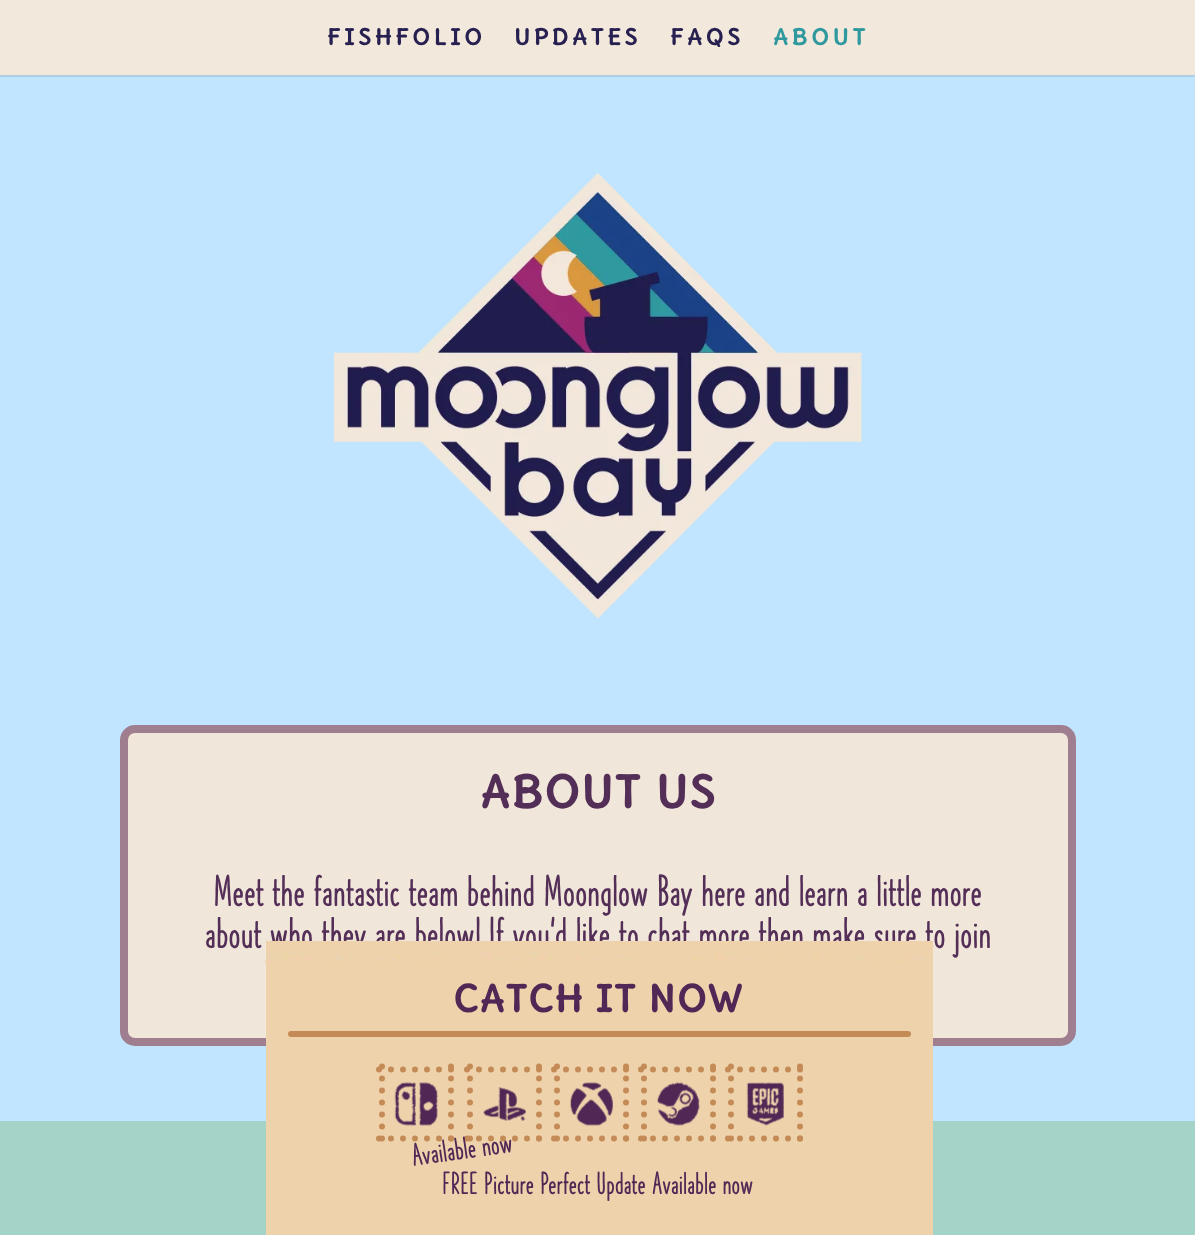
<svg xmlns="http://www.w3.org/2000/svg" width="1195" height="1235" viewBox="0 0 1195 1235">
  <rect width="100%" height="100%" fill="#c1e5ff"/>
  <path d="M0 75V77H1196V2V75Z" fill="#aecee6"/>
  <rect x="0" y="0" width="1195" height="75" fill="#f2e8db"/>
  <text x="327" y="45" font-family="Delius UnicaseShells" font-size="22.5" letter-spacing="3" fill="#272050">FISHFOLIO</text>
  <text x="514" y="45" font-family="Delius UnicaseShells" font-size="22.5" letter-spacing="3" fill="#272050">UPDATES</text>
  <text x="670" y="45" font-family="Delius UnicaseShells" font-size="22.5" letter-spacing="3" fill="#272050">FAQS</text>
  <text x="773" y="45" font-family="Delius UnicaseShells" font-size="22.5" letter-spacing="3" fill="#2f999f">ABOUT</text>
  <image x="334" y="173" width="528" height="446" href="img1.png"/>
  <rect x="124" y="729" width="948" height="313" rx="11" fill="#f1e6da" stroke="#9f7e8f" stroke-width="8"/>
  <text x="480" y="808" font-family="Delius Unicase" font-size="45" font-weight="bold" fill="#532e57">ABOUT US</text>
  <text x="213" y="906" font-family="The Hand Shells" font-size="42" font-weight="800" fill="#532e57">Meet the fantastic team behind Moonglow Bay here and learn a little more</text>
  <text x="205" y="948" font-family="The Hand Shells" font-size="42" font-weight="800" fill="#532e57">about who they are below! If you’d like to chat more then make sure to join</text>
  <rect x="0" y="1121" width="1195" height="114" fill="#a4d4c7"/>
  <rect x="266" y="941" width="667" height="294" fill="#eed2ab"/>
  <image x="264" y="951" width="663" height="13" href="img2.png"/>
  <text x="453" y="1012" font-family="Delius Unicase" font-size="37.5" font-weight="bold" fill="#502755">CATCH IT NOW</text>
  <rect x="288" y="1031" width="623" height="6" rx="3" fill="#c58b57"/>
  <path d="M379 1069.5H454" fill="none" stroke="#c58b57" stroke-width="6" stroke-linecap="round" stroke-dasharray="0 12"/>
  <path d="M451 1066.5V1141.5" fill="none" stroke="#c58b57" stroke-width="6" stroke-linecap="round" stroke-dasharray="0 12"/>
  <path d="M379 1138.5H454" fill="none" stroke="#c58b57" stroke-width="6" stroke-linecap="round" stroke-dasharray="0 12"/>
  <path d="M382 1066.5V1141.5" fill="none" stroke="#c58b57" stroke-width="6" stroke-linecap="round" stroke-dasharray="0 12"/>
  <image x="394" y="1082" width="44" height="44" href="img3.png"/>
  <path d="M467 1069.5H542" fill="none" stroke="#c58b57" stroke-width="6" stroke-linecap="round" stroke-dasharray="0 12"/>
  <path d="M539 1066.5V1141.5" fill="none" stroke="#c58b57" stroke-width="6" stroke-linecap="round" stroke-dasharray="0 12"/>
  <path d="M467 1138.5H542" fill="none" stroke="#c58b57" stroke-width="6" stroke-linecap="round" stroke-dasharray="0 12"/>
  <path d="M470 1066.5V1141.5" fill="none" stroke="#c58b57" stroke-width="6" stroke-linecap="round" stroke-dasharray="0 12"/>
  <image x="483" y="1087" width="43" height="34" href="img4.png"/>
  <path d="M554 1069.5H629" fill="none" stroke="#c58b57" stroke-width="6" stroke-linecap="round" stroke-dasharray="0 12"/>
  <path d="M626 1066.5V1141.5" fill="none" stroke="#c58b57" stroke-width="6" stroke-linecap="round" stroke-dasharray="0 12"/>
  <path d="M554 1138.5H629" fill="none" stroke="#c58b57" stroke-width="6" stroke-linecap="round" stroke-dasharray="0 12"/>
  <path d="M557 1066.5V1141.5" fill="none" stroke="#c58b57" stroke-width="6" stroke-linecap="round" stroke-dasharray="0 12"/>
  <image x="570" y="1082" width="43" height="44" href="img5.png"/>
  <path d="M641 1069.5H716" fill="none" stroke="#c58b57" stroke-width="6" stroke-linecap="round" stroke-dasharray="0 12"/>
  <path d="M713 1066.5V1141.5" fill="none" stroke="#c58b57" stroke-width="6" stroke-linecap="round" stroke-dasharray="0 12"/>
  <path d="M641 1138.5H716" fill="none" stroke="#c58b57" stroke-width="6" stroke-linecap="round" stroke-dasharray="0 12"/>
  <path d="M644 1066.5V1141.5" fill="none" stroke="#c58b57" stroke-width="6" stroke-linecap="round" stroke-dasharray="0 12"/>
  <image x="657" y="1082" width="43" height="44" href="img6.png"/>
  <path d="M728 1069.5H803" fill="none" stroke="#c58b57" stroke-width="6" stroke-linecap="round" stroke-dasharray="0 12"/>
  <path d="M800 1066.5V1141.5" fill="none" stroke="#c58b57" stroke-width="6" stroke-linecap="round" stroke-dasharray="0 12"/>
  <path d="M728 1138.5H803" fill="none" stroke="#c58b57" stroke-width="6" stroke-linecap="round" stroke-dasharray="0 12"/>
  <path d="M731 1066.5V1141.5" fill="none" stroke="#c58b57" stroke-width="6" stroke-linecap="round" stroke-dasharray="0 12"/>
  <image x="746" y="1082" width="38" height="44" href="img7.png"/>
  <text x="413" y="1166" transform="rotate(-8 413 1166)" font-family="The Hand Shells" font-size="30" font-weight="800" fill="#502755">Available now</text>
  <text x="442" y="1194" font-family="The Hand Shells" font-size="30" font-weight="800" fill="#502755">FREE Picture Perfect Update Available now</text>
</svg>
